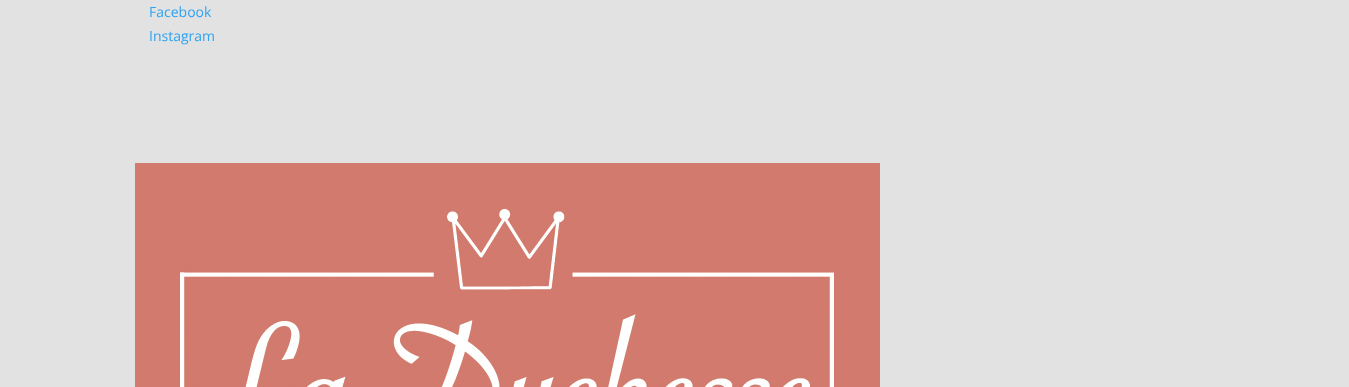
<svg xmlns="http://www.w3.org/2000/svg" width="1349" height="387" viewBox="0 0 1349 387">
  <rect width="100%" height="100%" fill="#e2e2e2"/>
  <text x="149" y="17" font-family="Open Sans" font-size="14" fill="#2ea3f2">Facebook</text>
  <text x="149" y="41" font-family="Open Sans" font-size="14" fill="#2ea3f2">Instagram</text>
  <image x="135" y="163" width="745" height="224" href="img1.png"/>
</svg>
